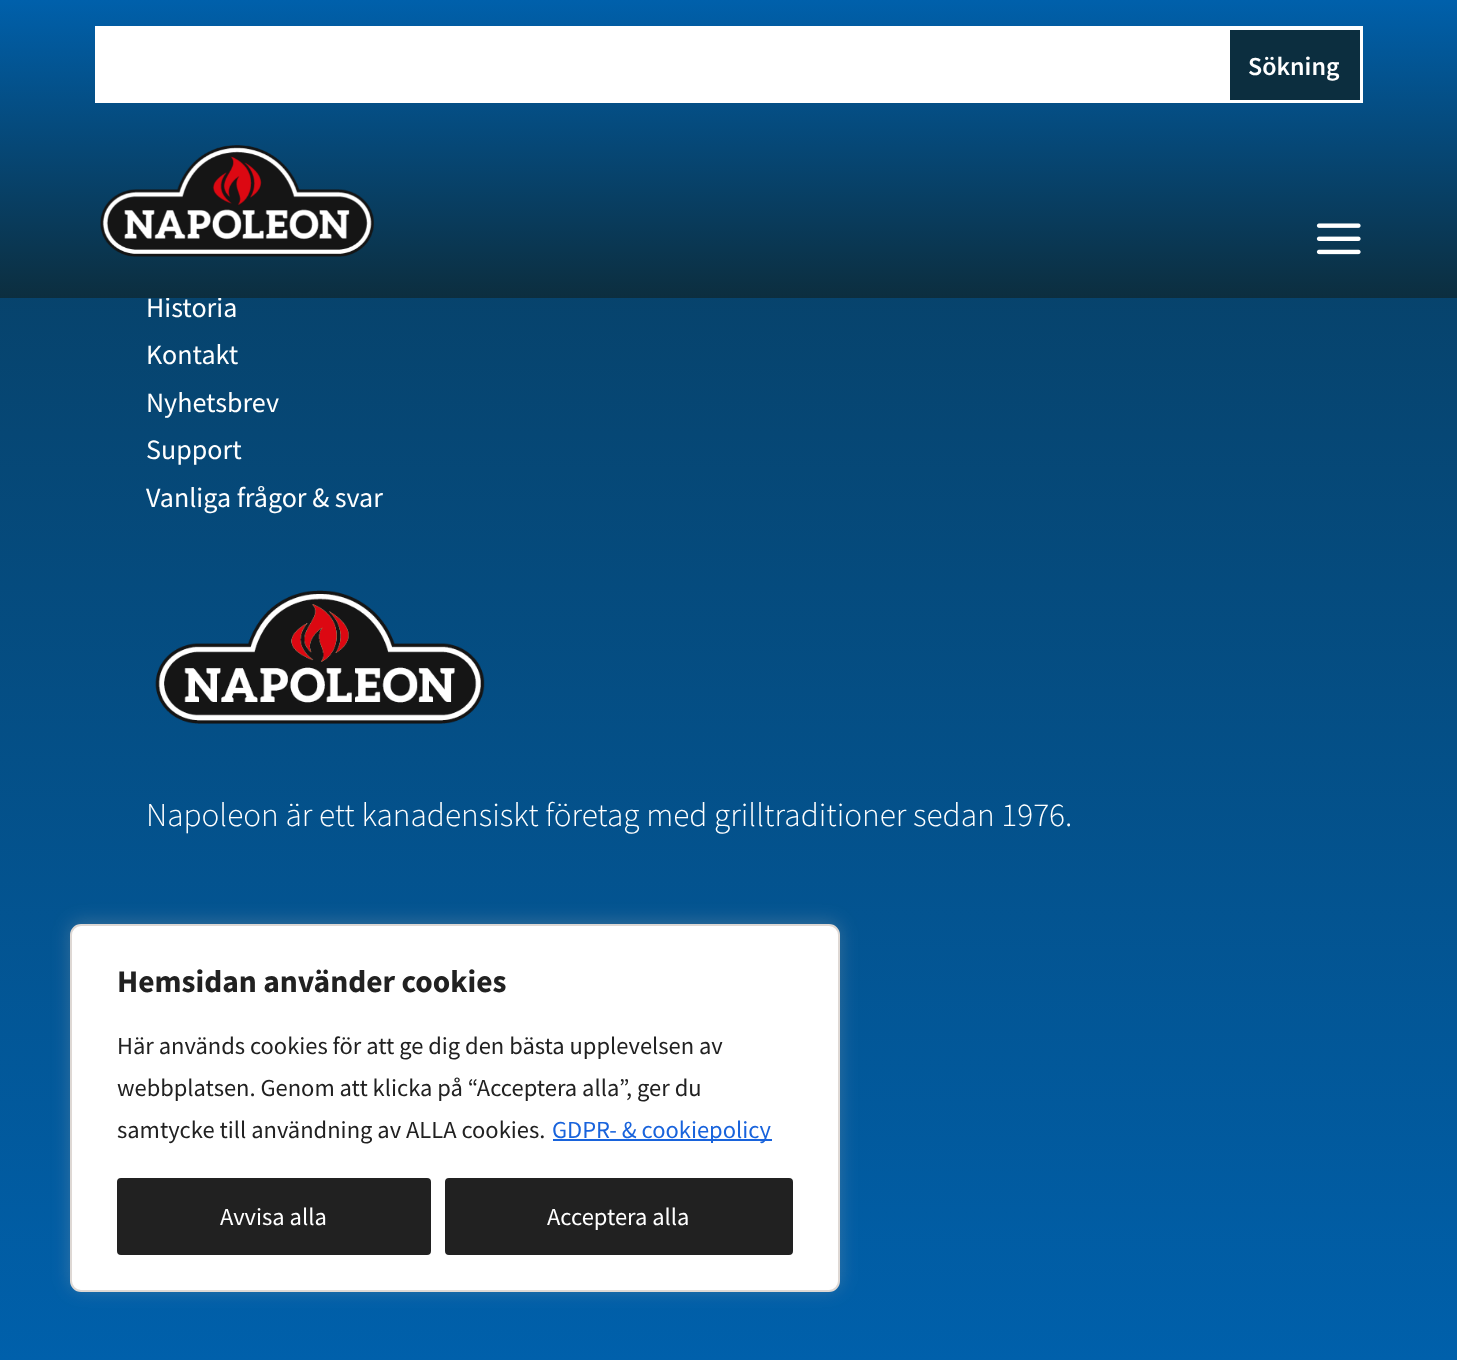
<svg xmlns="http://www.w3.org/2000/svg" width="1457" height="1360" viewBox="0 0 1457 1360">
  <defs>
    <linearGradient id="g1" gradientUnits="userSpaceOnUse" x1="729" y1="-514" x2="729" y2="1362"><stop offset="0.01" stop-color="#0c2e3f"/><stop offset="1" stop-color="#0060ab"/></linearGradient>
    <linearGradient id="g2" gradientUnits="userSpaceOnUse" x1="729" y1="0" x2="729" y2="298"><stop offset="0" stop-color="#0060ab"/><stop offset="1" stop-color="#0c2e3f"/></linearGradient>
    <filter id="blur1" x="-50%" y="-200%" width="200%" height="500%"><feGaussianBlur stdDeviation="9"/></filter>
  </defs>
  <rect width="100%" height="100%" fill="#ffffff"/>
  <rect x="0" y="298" width="1457" height="1062" fill="url(#g1)"/>
  <text x="146" y="317" font-family="Source Sans Pro" font-size="28" fill="#ffffff">Historia</text>
  <rect x="0" y="0" width="1457" height="298" fill="url(#g2)"/>
  <rect x="97" y="28" width="1264" height="73" fill="none" stroke="#ffffff" stroke-width="4"/>
  <rect x="99" y="30" width="1131" height="69" fill="#ffffff"/>
  <rect x="1230" y="30" width="130" height="70" fill="#0c2e3f"/>
  <text x="1248" y="75" font-family="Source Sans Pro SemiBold" font-size="26" font-weight="600" fill="#ffffff">Sökning</text>
  <image x="100" y="145" width="274" height="112" href="img1.png"/>
  <image x="1316" y="223" width="45" height="32" href="img2.png"/>
  <text x="146" y="364" font-family="Source Sans Pro" font-size="28" fill="#ffffff">Kontakt</text>
  <text x="146" y="412" font-family="Source Sans Pro" font-size="28" fill="#ffffff">Nyhetsbrev</text>
  <text x="146" y="459" font-family="Source Sans Pro" font-size="28" fill="#ffffff">Support</text>
  <text x="146" y="507" font-family="Source Sans Pro" font-size="28" fill="#ffffff">Vanliga frågor &amp; svar</text>
  <image x="155" y="590" width="330" height="134" href="img3.png"/>
  <text x="146" y="826" font-family="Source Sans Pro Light" font-size="33.25" font-weight="300" fill="#ffffff">Napoleon är ett kanadensiskt företag med grilltraditioner sedan 1976.</text>
  <rect x="70" y="922" width="770" height="368" rx="11" fill="#acabab" fill-opacity="0.3" filter="url(#blur1)"/>
  <rect x="71" y="925" width="768" height="366" rx="10" fill="#ffffff" stroke="#ded8d4" stroke-width="2"/>
  <text x="117" y="992" font-family="Source Sans Pro" font-size="31.5" font-weight="bold" fill="#212121">Hemsidan använder cookies</text>
  <text x="117" y="1054" font-family="Source Sans Pro" font-size="24.5" fill="#212121">Här används cookies för att ge dig den bästa upplevelsen av</text>
  <text x="117" y="1096" font-family="Source Sans Pro" font-size="24.5" fill="#212121">webbplatsen. Genom att klicka på “Acceptera alla”, ger du</text>
  <text x="117" y="1138" font-family="Source Sans Pro" font-size="24.5" fill="#212121">samtycke till användning av ALLA cookies.</text>
  <rect x="553" y="1139" width="219" height="2" fill="#1863dc"/>
  <text x="552" y="1138" font-family="Source Sans Pro" font-size="24.5" fill="#1863dc">GDPR- &amp; cookiepolicy</text>
  <rect x="119" y="1180" width="310" height="73" rx="2" fill="#212121" stroke="#212121" stroke-width="4"/>
  <text x="220" y="1225" font-family="Source Sans Pro" font-size="24.5" fill="#ffffff">Avvisa alla</text>
  <rect x="447" y="1180" width="344" height="73" rx="2" fill="#212121" stroke="#212121" stroke-width="4"/>
  <text x="547" y="1225" font-family="Source Sans Pro" font-size="24.5" fill="#ffffff">Acceptera alla</text>
</svg>
